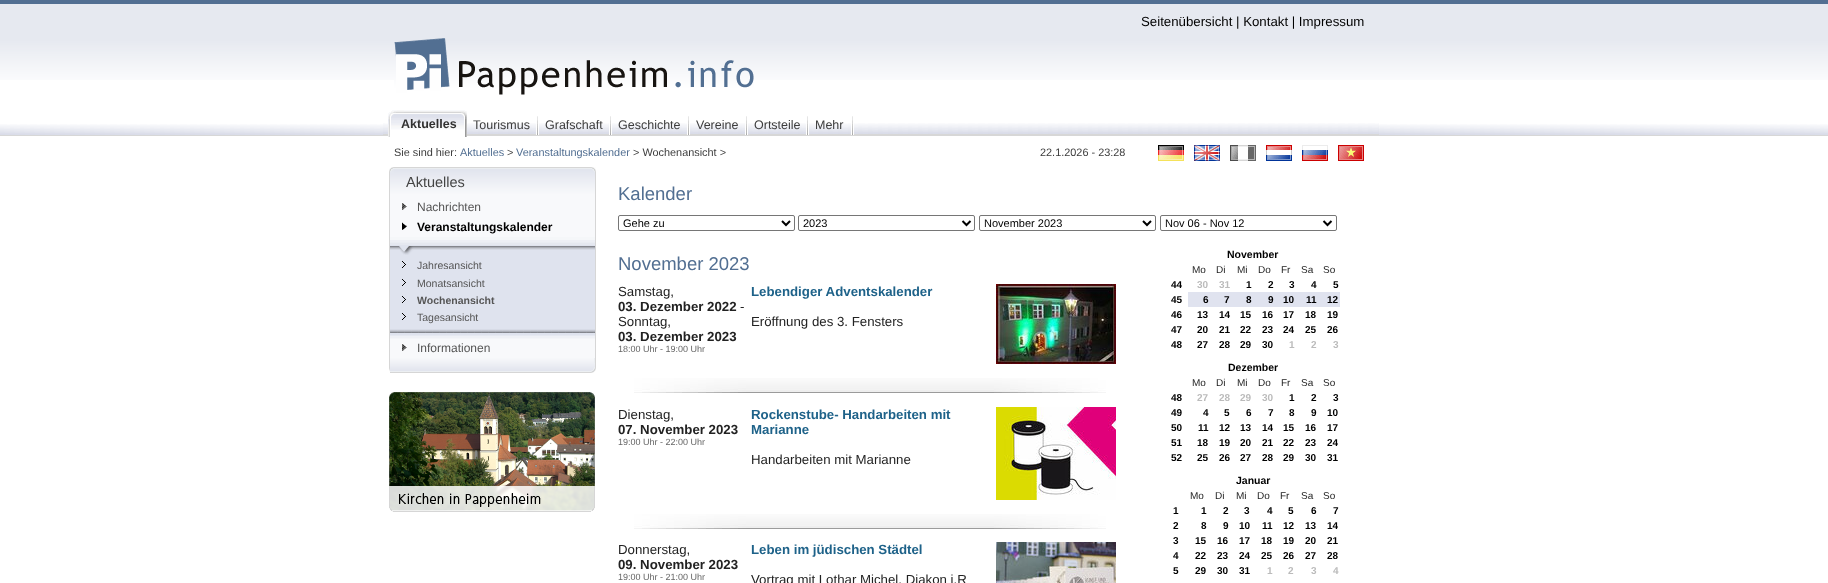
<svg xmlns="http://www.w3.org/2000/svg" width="1828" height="583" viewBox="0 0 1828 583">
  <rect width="100%" height="100%" fill="#ffffff"/>
  <image x="0" y="0" width="1828" height="80" href="img1.png"/>
  <text x="1141" y="26" font-family="Liberation Sans" font-size="13.25" fill="#000000">Seitenübersicht | Kontakt | Impressum</text>
  <image x="394" y="38" width="360" height="57" href="img2.png"/>
  <image x="0" y="124" width="1828" height="12" href="img3.png"/>
  <image x="383" y="123" width="996" height="12" href="img4.png"/>
  <image x="388" y="110" width="16" height="27" href="img5.png"/>
  <image x="404" y="110" width="63" height="27" href="img6.png"/>
  <text x="401" y="128" font-family="Liberation Sans" font-size="12.5" font-weight="bold" fill="#313131">Aktuelles</text>
  <image x="536" y="116" width="3" height="19" href="img7.png"/>
  <text x="473" y="129" font-family="Liberation Sans" font-size="12.5" fill="#3d3d3d">Tourismus</text>
  <image x="609" y="116" width="3" height="19" href="img7.png"/>
  <text x="545" y="129" font-family="Liberation Sans" font-size="12.5" fill="#3d3d3d">Grafschaft</text>
  <image x="687" y="116" width="3" height="19" href="img7.png"/>
  <text x="618" y="129" font-family="Liberation Sans" font-size="12.5" fill="#3d3d3d">Geschichte</text>
  <image x="745" y="116" width="3" height="19" href="img7.png"/>
  <text x="696" y="129" font-family="Liberation Sans" font-size="12.5" fill="#3d3d3d">Vereine</text>
  <image x="806" y="116" width="3" height="19" href="img7.png"/>
  <text x="754" y="129" font-family="Liberation Sans" font-size="12.5" fill="#3d3d3d">Ortsteile</text>
  <image x="851" y="116" width="3" height="19" href="img7.png"/>
  <text x="815" y="129" font-family="Liberation Sans" font-size="12.5" fill="#3d3d3d">Mehr</text>
  <text x="394" y="156" font-family="Liberation Sans" font-size="10.9" fill="#3d3d3d">Sie sind hier:</text>
  <text x="460" y="156" font-family="Liberation Sans" font-size="10.9" fill="#526f92">Aktuelles</text>
  <text x="507" y="156" font-family="Liberation Sans" font-size="10.9" fill="#3d3d3d">&gt;</text>
  <text x="516" y="156" font-family="Liberation Sans" font-size="10.9" fill="#526f92">Veranstaltungskalender</text>
  <text x="633" y="156" font-family="Liberation Sans" font-size="10.9" fill="#3d3d3d">&gt; Wochenansicht &gt;</text>
  <text x="1040" y="156" font-family="Liberation Sans" font-size="10.9" fill="#3d3d3d">22.1.2026 - 23:28</text>
  <image x="1158" y="145" width="26" height="16" href="img8.png"/>
  <image x="1194" y="145" width="26" height="16" href="img9.png"/>
  <image x="1230" y="145" width="26" height="16" href="img10.png"/>
  <image x="1266" y="145" width="26" height="16" href="img11.png"/>
  <image x="1302" y="145" width="26" height="16" href="img12.png"/>
  <image x="1338" y="145" width="26" height="16" href="img13.png"/>
  <image x="389" y="167" width="5" height="31" href="img14.png"/>
  <image x="394" y="167" width="202" height="31" href="img15.png"/>
  <text x="406" y="187" font-family="Liberation Sans" font-size="14.5" fill="#444444">Aktuelles</text>
  <rect x="389" y="198" width="1" height="159" fill="#d6d6d6"/>
  <image x="389" y="357" width="1" height="16" href="img16.png"/>
  <image x="390" y="358" width="206" height="15" href="img17.png"/>
  <rect x="595" y="198" width="1" height="160" fill="#d6d6d6"/>
  <rect x="390" y="198" width="205" height="39" fill="#f8f9fb"/>
  <image x="402" y="202" width="5" height="8" href="img18.png"/>
  <text x="417" y="211" font-family="Liberation Sans" font-size="12" fill="#555555">Nachrichten</text>
  <image x="402" y="222" width="5" height="8" href="img19.png"/>
  <text x="417" y="231" font-family="Liberation Sans" font-size="12" font-weight="bold" fill="#000000">Veranstaltungskalender</text>
  <rect x="390" y="255" width="205" height="72" fill="#dfe3ee"/>
  <image x="390" y="237" width="205" height="18" href="img20.png"/>
  <image x="402" y="261" width="4" height="7" href="img21.png"/>
  <text x="417" y="269" font-family="Liberation Sans" font-size="10.5" fill="#555555">Jahresansicht</text>
  <image x="402" y="279" width="4" height="7" href="img21.png"/>
  <text x="417" y="287" font-family="Liberation Sans" font-size="10.5" fill="#555555">Monatsansicht</text>
  <image x="402" y="296" width="4" height="7" href="img21.png"/>
  <text x="417" y="304" font-family="Liberation Sans" font-size="10.5" font-weight="bold" fill="#555555">Wochenansicht</text>
  <image x="402" y="313" width="4" height="7" href="img21.png"/>
  <text x="417" y="321" font-family="Liberation Sans" font-size="10.5" fill="#555555">Tagesansicht</text>
  <image x="390" y="327" width="205" height="12" href="img22.png"/>
  <rect x="390" y="339" width="205" height="19" fill="#f8f9fb"/>
  <image x="402" y="343" width="5" height="8" href="img18.png"/>
  <text x="417" y="352" font-family="Liberation Sans" font-size="12" fill="#555555">Informationen</text>
  <image x="389" y="392" width="206" height="120" href="img23.png"/>
  <text x="618" y="200" font-family="Liberation Sans" font-size="18.5" fill="#526f92">Kalender</text>
  <rect x="618.5" y="215.5" width="176" height="15" rx="1.5" fill="none" stroke="#767676"/>
  <path d="M782 221L786 225L790 221" fill="none" stroke="#000000" stroke-width="2"/>
  <text x="623" y="227" font-family="Liberation Sans" font-size="11" fill="#000000">Gehe zu</text>
  <rect x="798.5" y="215.5" width="176" height="15" rx="1.5" fill="none" stroke="#767676"/>
  <path d="M962.5 221L966.5 225L970.5 221" fill="none" stroke="#000000" stroke-width="2"/>
  <text x="803" y="227" font-family="Liberation Sans" font-size="11" fill="#000000">2023</text>
  <rect x="979.5" y="215.5" width="176" height="15" rx="1.5" fill="none" stroke="#767676"/>
  <path d="M1143 221L1147 225L1151 221" fill="none" stroke="#000000" stroke-width="2"/>
  <text x="984" y="227" font-family="Liberation Sans" font-size="11" fill="#000000">November 2023</text>
  <rect x="1160.5" y="215.5" width="176" height="15" rx="1.5" fill="none" stroke="#767676"/>
  <path d="M1323.5 221L1327.5 225L1331.5 221" fill="none" stroke="#000000" stroke-width="2"/>
  <text x="1165" y="227" font-family="Liberation Sans" font-size="11" fill="#000000">Nov 06 - Nov 12</text>
  <text x="618" y="270" font-family="Liberation Sans" font-size="18.5" fill="#526f92">November 2023</text>
  <text x="618" y="296" font-family="Liberation Sans" font-size="13.25" fill="#222222">Samstag,</text>
  <text x="618" y="311" font-family="Liberation Sans" font-size="13.25" font-weight="bold" fill="#222222">03. Dezember 2022</text>
  <text x="740" y="311" font-family="Liberation Sans" font-size="13.25" fill="#222222">-</text>
  <text x="618" y="326" font-family="Liberation Sans" font-size="13.25" fill="#222222">Sonntag,</text>
  <text x="618" y="341" font-family="Liberation Sans" font-size="13.25" font-weight="bold" fill="#222222">03. Dezember 2023</text>
  <text x="618" y="352" font-family="Liberation Sans" font-size="9" fill="#666666">18:00 Uhr - 19:00 Uhr</text>
  <text x="751" y="296" font-family="Liberation Sans" font-size="13.25" font-weight="bold" fill="#1e6289">Lebendiger Adventskalender</text>
  <text x="751" y="326" font-family="Liberation Sans" font-size="13.25" fill="#222222">Eröffnung des 3. Fensters</text>
  <image x="996" y="284" width="120" height="80" href="img24.png"/>
  <image x="634" y="378" width="472" height="15" href="img25.png"/>
  <text x="618" y="419" font-family="Liberation Sans" font-size="13.25" fill="#222222">Dienstag,</text>
  <text x="618" y="434" font-family="Liberation Sans" font-size="13.25" font-weight="bold" fill="#222222">07. November 2023</text>
  <text x="618" y="445" font-family="Liberation Sans" font-size="9" fill="#666666">19:00 Uhr - 22:00 Uhr</text>
  <text x="751" y="419" font-family="Liberation Sans" font-size="13.25" font-weight="bold" fill="#1e6289">Rockenstube- Handarbeiten mit</text>
  <text x="751" y="434" font-family="Liberation Sans" font-size="13.25" font-weight="bold" fill="#1e6289">Marianne</text>
  <text x="751" y="464" font-family="Liberation Sans" font-size="13.25" fill="#222222">Handarbeiten mit Marianne</text>
  <image x="996" y="407" width="120" height="93" href="img26.png"/>
  <image x="634" y="514" width="472" height="15" href="img25.png"/>
  <text x="618" y="554" font-family="Liberation Sans" font-size="13.25" fill="#222222">Donnerstag,</text>
  <text x="618" y="569" font-family="Liberation Sans" font-size="13.25" font-weight="bold" fill="#222222">09. November 2023</text>
  <text x="618" y="580" font-family="Liberation Sans" font-size="9" fill="#666666">19:00 Uhr - 21:00 Uhr</text>
  <text x="751" y="554" font-family="Liberation Sans" font-size="13.25" font-weight="bold" fill="#1e6289">Leben im jüdischen Städtel</text>
  <text x="751" y="584" font-family="Liberation Sans" font-size="13.25" fill="#222222">Vortrag mit Lothar Michel, Diakon i.R</text>
  <image x="996" y="542" width="120" height="41" href="img27.png"/>
  <text x="1227" y="258" font-family="Liberation Sans" font-size="10.5" font-weight="bold" fill="#000000">November</text>
  <text x="1192" y="273" font-family="Liberation Sans" font-size="10" fill="#222222">Mo</text>
  <text x="1216" y="273" font-family="Liberation Sans" font-size="10" fill="#222222">Di</text>
  <text x="1237" y="273" font-family="Liberation Sans" font-size="10" fill="#222222">Mi</text>
  <text x="1258" y="273" font-family="Liberation Sans" font-size="10" fill="#222222">Do</text>
  <text x="1281" y="273" font-family="Liberation Sans" font-size="10" fill="#222222">Fr</text>
  <text x="1301" y="273" font-family="Liberation Sans" font-size="10" fill="#222222">Sa</text>
  <text x="1323" y="273" font-family="Liberation Sans" font-size="10" fill="#222222">So</text>
  <text x="1171" y="288" font-family="Liberation Sans" font-size="10" font-weight="bold" fill="#000000">44</text>
  <text x="1197" y="288" font-family="Liberation Sans" font-size="10" font-weight="bold" fill="#bbbbbb">30</text>
  <text x="1219" y="288" font-family="Liberation Sans" font-size="10" font-weight="bold" fill="#bbbbbb">31</text>
  <text x="1246" y="288" font-family="Liberation Sans" font-size="10" font-weight="bold" fill="#000000">1</text>
  <text x="1268" y="288" font-family="Liberation Sans" font-size="10" font-weight="bold" fill="#000000">2</text>
  <text x="1289" y="288" font-family="Liberation Sans" font-size="10" font-weight="bold" fill="#000000">3</text>
  <text x="1311" y="288" font-family="Liberation Sans" font-size="10" font-weight="bold" fill="#000000">4</text>
  <text x="1333" y="288" font-family="Liberation Sans" font-size="10" font-weight="bold" fill="#000000">5</text>
  <text x="1171" y="303" font-family="Liberation Sans" font-size="10" font-weight="bold" fill="#000000">45</text>
  <rect x="1188" y="292" width="152" height="15" fill="#e0e3ef"/>
  <text x="1203" y="303" font-family="Liberation Sans" font-size="10" font-weight="bold" fill="#000000">6</text>
  <text x="1224" y="303" font-family="Liberation Sans" font-size="10" font-weight="bold" fill="#000000">7</text>
  <text x="1246" y="303" font-family="Liberation Sans" font-size="10" font-weight="bold" fill="#000000">8</text>
  <text x="1268" y="303" font-family="Liberation Sans" font-size="10" font-weight="bold" fill="#000000">9</text>
  <text x="1283" y="303" font-family="Liberation Sans" font-size="10" font-weight="bold" fill="#000000">10</text>
  <text x="1306" y="303" font-family="Liberation Sans" font-size="10" font-weight="bold" fill="#000000">11</text>
  <text x="1327" y="303" font-family="Liberation Sans" font-size="10" font-weight="bold" fill="#000000">12</text>
  <text x="1171" y="318" font-family="Liberation Sans" font-size="10" font-weight="bold" fill="#000000">46</text>
  <text x="1197" y="318" font-family="Liberation Sans" font-size="10" font-weight="bold" fill="#000000">13</text>
  <text x="1219" y="318" font-family="Liberation Sans" font-size="10" font-weight="bold" fill="#000000">14</text>
  <text x="1240" y="318" font-family="Liberation Sans" font-size="10" font-weight="bold" fill="#000000">15</text>
  <text x="1262" y="318" font-family="Liberation Sans" font-size="10" font-weight="bold" fill="#000000">16</text>
  <text x="1283" y="318" font-family="Liberation Sans" font-size="10" font-weight="bold" fill="#000000">17</text>
  <text x="1305" y="318" font-family="Liberation Sans" font-size="10" font-weight="bold" fill="#000000">18</text>
  <text x="1327" y="318" font-family="Liberation Sans" font-size="10" font-weight="bold" fill="#000000">19</text>
  <text x="1171" y="333" font-family="Liberation Sans" font-size="10" font-weight="bold" fill="#000000">47</text>
  <text x="1197" y="333" font-family="Liberation Sans" font-size="10" font-weight="bold" fill="#000000">20</text>
  <text x="1219" y="333" font-family="Liberation Sans" font-size="10" font-weight="bold" fill="#000000">21</text>
  <text x="1240" y="333" font-family="Liberation Sans" font-size="10" font-weight="bold" fill="#000000">22</text>
  <text x="1262" y="333" font-family="Liberation Sans" font-size="10" font-weight="bold" fill="#000000">23</text>
  <text x="1283" y="333" font-family="Liberation Sans" font-size="10" font-weight="bold" fill="#000000">24</text>
  <text x="1305" y="333" font-family="Liberation Sans" font-size="10" font-weight="bold" fill="#000000">25</text>
  <text x="1327" y="333" font-family="Liberation Sans" font-size="10" font-weight="bold" fill="#000000">26</text>
  <text x="1171" y="348" font-family="Liberation Sans" font-size="10" font-weight="bold" fill="#000000">48</text>
  <text x="1197" y="348" font-family="Liberation Sans" font-size="10" font-weight="bold" fill="#000000">27</text>
  <text x="1219" y="348" font-family="Liberation Sans" font-size="10" font-weight="bold" fill="#000000">28</text>
  <text x="1240" y="348" font-family="Liberation Sans" font-size="10" font-weight="bold" fill="#000000">29</text>
  <text x="1262" y="348" font-family="Liberation Sans" font-size="10" font-weight="bold" fill="#000000">30</text>
  <text x="1289" y="348" font-family="Liberation Sans" font-size="10" font-weight="bold" fill="#bbbbbb">1</text>
  <text x="1311" y="348" font-family="Liberation Sans" font-size="10" font-weight="bold" fill="#bbbbbb">2</text>
  <text x="1333" y="348" font-family="Liberation Sans" font-size="10" font-weight="bold" fill="#bbbbbb">3</text>
  <text x="1228" y="371" font-family="Liberation Sans" font-size="10.5" font-weight="bold" fill="#000000">Dezember</text>
  <text x="1192" y="386" font-family="Liberation Sans" font-size="10" fill="#222222">Mo</text>
  <text x="1216" y="386" font-family="Liberation Sans" font-size="10" fill="#222222">Di</text>
  <text x="1237" y="386" font-family="Liberation Sans" font-size="10" fill="#222222">Mi</text>
  <text x="1258" y="386" font-family="Liberation Sans" font-size="10" fill="#222222">Do</text>
  <text x="1281" y="386" font-family="Liberation Sans" font-size="10" fill="#222222">Fr</text>
  <text x="1301" y="386" font-family="Liberation Sans" font-size="10" fill="#222222">Sa</text>
  <text x="1323" y="386" font-family="Liberation Sans" font-size="10" fill="#222222">So</text>
  <text x="1171" y="401" font-family="Liberation Sans" font-size="10" font-weight="bold" fill="#000000">48</text>
  <text x="1197" y="401" font-family="Liberation Sans" font-size="10" font-weight="bold" fill="#bbbbbb">27</text>
  <text x="1219" y="401" font-family="Liberation Sans" font-size="10" font-weight="bold" fill="#bbbbbb">28</text>
  <text x="1240" y="401" font-family="Liberation Sans" font-size="10" font-weight="bold" fill="#bbbbbb">29</text>
  <text x="1262" y="401" font-family="Liberation Sans" font-size="10" font-weight="bold" fill="#bbbbbb">30</text>
  <text x="1289" y="401" font-family="Liberation Sans" font-size="10" font-weight="bold" fill="#000000">1</text>
  <text x="1311" y="401" font-family="Liberation Sans" font-size="10" font-weight="bold" fill="#000000">2</text>
  <text x="1333" y="401" font-family="Liberation Sans" font-size="10" font-weight="bold" fill="#000000">3</text>
  <text x="1171" y="416" font-family="Liberation Sans" font-size="10" font-weight="bold" fill="#000000">49</text>
  <text x="1203" y="416" font-family="Liberation Sans" font-size="10" font-weight="bold" fill="#000000">4</text>
  <text x="1224" y="416" font-family="Liberation Sans" font-size="10" font-weight="bold" fill="#000000">5</text>
  <text x="1246" y="416" font-family="Liberation Sans" font-size="10" font-weight="bold" fill="#000000">6</text>
  <text x="1268" y="416" font-family="Liberation Sans" font-size="10" font-weight="bold" fill="#000000">7</text>
  <text x="1289" y="416" font-family="Liberation Sans" font-size="10" font-weight="bold" fill="#000000">8</text>
  <text x="1311" y="416" font-family="Liberation Sans" font-size="10" font-weight="bold" fill="#000000">9</text>
  <text x="1327" y="416" font-family="Liberation Sans" font-size="10" font-weight="bold" fill="#000000">10</text>
  <text x="1171" y="431" font-family="Liberation Sans" font-size="10" font-weight="bold" fill="#000000">50</text>
  <text x="1198" y="431" font-family="Liberation Sans" font-size="10" font-weight="bold" fill="#000000">11</text>
  <text x="1219" y="431" font-family="Liberation Sans" font-size="10" font-weight="bold" fill="#000000">12</text>
  <text x="1240" y="431" font-family="Liberation Sans" font-size="10" font-weight="bold" fill="#000000">13</text>
  <text x="1262" y="431" font-family="Liberation Sans" font-size="10" font-weight="bold" fill="#000000">14</text>
  <text x="1283" y="431" font-family="Liberation Sans" font-size="10" font-weight="bold" fill="#000000">15</text>
  <text x="1305" y="431" font-family="Liberation Sans" font-size="10" font-weight="bold" fill="#000000">16</text>
  <text x="1327" y="431" font-family="Liberation Sans" font-size="10" font-weight="bold" fill="#000000">17</text>
  <text x="1171" y="446" font-family="Liberation Sans" font-size="10" font-weight="bold" fill="#000000">51</text>
  <text x="1197" y="446" font-family="Liberation Sans" font-size="10" font-weight="bold" fill="#000000">18</text>
  <text x="1219" y="446" font-family="Liberation Sans" font-size="10" font-weight="bold" fill="#000000">19</text>
  <text x="1240" y="446" font-family="Liberation Sans" font-size="10" font-weight="bold" fill="#000000">20</text>
  <text x="1262" y="446" font-family="Liberation Sans" font-size="10" font-weight="bold" fill="#000000">21</text>
  <text x="1283" y="446" font-family="Liberation Sans" font-size="10" font-weight="bold" fill="#000000">22</text>
  <text x="1305" y="446" font-family="Liberation Sans" font-size="10" font-weight="bold" fill="#000000">23</text>
  <text x="1327" y="446" font-family="Liberation Sans" font-size="10" font-weight="bold" fill="#000000">24</text>
  <text x="1171" y="461" font-family="Liberation Sans" font-size="10" font-weight="bold" fill="#000000">52</text>
  <text x="1197" y="461" font-family="Liberation Sans" font-size="10" font-weight="bold" fill="#000000">25</text>
  <text x="1219" y="461" font-family="Liberation Sans" font-size="10" font-weight="bold" fill="#000000">26</text>
  <text x="1240" y="461" font-family="Liberation Sans" font-size="10" font-weight="bold" fill="#000000">27</text>
  <text x="1262" y="461" font-family="Liberation Sans" font-size="10" font-weight="bold" fill="#000000">28</text>
  <text x="1283" y="461" font-family="Liberation Sans" font-size="10" font-weight="bold" fill="#000000">29</text>
  <text x="1305" y="461" font-family="Liberation Sans" font-size="10" font-weight="bold" fill="#000000">30</text>
  <text x="1327" y="461" font-family="Liberation Sans" font-size="10" font-weight="bold" fill="#000000">31</text>
  <text x="1236" y="484" font-family="Liberation Sans" font-size="10.5" font-weight="bold" fill="#000000">Januar</text>
  <text x="1190" y="499" font-family="Liberation Sans" font-size="10" fill="#222222">Mo</text>
  <text x="1215" y="499" font-family="Liberation Sans" font-size="10" fill="#222222">Di</text>
  <text x="1236" y="499" font-family="Liberation Sans" font-size="10" fill="#222222">Mi</text>
  <text x="1257" y="499" font-family="Liberation Sans" font-size="10" fill="#222222">Do</text>
  <text x="1280" y="499" font-family="Liberation Sans" font-size="10" fill="#222222">Fr</text>
  <text x="1301" y="499" font-family="Liberation Sans" font-size="10" fill="#222222">Sa</text>
  <text x="1323" y="499" font-family="Liberation Sans" font-size="10" fill="#222222">So</text>
  <text x="1173" y="514" font-family="Liberation Sans" font-size="10" font-weight="bold" fill="#000000">1</text>
  <text x="1201" y="514" font-family="Liberation Sans" font-size="10" font-weight="bold" fill="#000000">1</text>
  <text x="1223" y="514" font-family="Liberation Sans" font-size="10" font-weight="bold" fill="#000000">2</text>
  <text x="1244" y="514" font-family="Liberation Sans" font-size="10" font-weight="bold" fill="#000000">3</text>
  <text x="1267" y="514" font-family="Liberation Sans" font-size="10" font-weight="bold" fill="#000000">4</text>
  <text x="1288" y="514" font-family="Liberation Sans" font-size="10" font-weight="bold" fill="#000000">5</text>
  <text x="1311" y="514" font-family="Liberation Sans" font-size="10" font-weight="bold" fill="#000000">6</text>
  <text x="1333" y="514" font-family="Liberation Sans" font-size="10" font-weight="bold" fill="#000000">7</text>
  <text x="1173" y="529" font-family="Liberation Sans" font-size="10" font-weight="bold" fill="#000000">2</text>
  <text x="1201" y="529" font-family="Liberation Sans" font-size="10" font-weight="bold" fill="#000000">8</text>
  <text x="1223" y="529" font-family="Liberation Sans" font-size="10" font-weight="bold" fill="#000000">9</text>
  <text x="1239" y="529" font-family="Liberation Sans" font-size="10" font-weight="bold" fill="#000000">10</text>
  <text x="1262" y="529" font-family="Liberation Sans" font-size="10" font-weight="bold" fill="#000000">11</text>
  <text x="1283" y="529" font-family="Liberation Sans" font-size="10" font-weight="bold" fill="#000000">12</text>
  <text x="1305" y="529" font-family="Liberation Sans" font-size="10" font-weight="bold" fill="#000000">13</text>
  <text x="1327" y="529" font-family="Liberation Sans" font-size="10" font-weight="bold" fill="#000000">14</text>
  <text x="1173" y="544" font-family="Liberation Sans" font-size="10" font-weight="bold" fill="#000000">3</text>
  <text x="1195" y="544" font-family="Liberation Sans" font-size="10" font-weight="bold" fill="#000000">15</text>
  <text x="1217" y="544" font-family="Liberation Sans" font-size="10" font-weight="bold" fill="#000000">16</text>
  <text x="1239" y="544" font-family="Liberation Sans" font-size="10" font-weight="bold" fill="#000000">17</text>
  <text x="1261" y="544" font-family="Liberation Sans" font-size="10" font-weight="bold" fill="#000000">18</text>
  <text x="1283" y="544" font-family="Liberation Sans" font-size="10" font-weight="bold" fill="#000000">19</text>
  <text x="1305" y="544" font-family="Liberation Sans" font-size="10" font-weight="bold" fill="#000000">20</text>
  <text x="1327" y="544" font-family="Liberation Sans" font-size="10" font-weight="bold" fill="#000000">21</text>
  <text x="1173" y="559" font-family="Liberation Sans" font-size="10" font-weight="bold" fill="#000000">4</text>
  <text x="1195" y="559" font-family="Liberation Sans" font-size="10" font-weight="bold" fill="#000000">22</text>
  <text x="1217" y="559" font-family="Liberation Sans" font-size="10" font-weight="bold" fill="#000000">23</text>
  <text x="1239" y="559" font-family="Liberation Sans" font-size="10" font-weight="bold" fill="#000000">24</text>
  <text x="1261" y="559" font-family="Liberation Sans" font-size="10" font-weight="bold" fill="#000000">25</text>
  <text x="1283" y="559" font-family="Liberation Sans" font-size="10" font-weight="bold" fill="#000000">26</text>
  <text x="1305" y="559" font-family="Liberation Sans" font-size="10" font-weight="bold" fill="#000000">27</text>
  <text x="1327" y="559" font-family="Liberation Sans" font-size="10" font-weight="bold" fill="#000000">28</text>
  <text x="1173" y="574" font-family="Liberation Sans" font-size="10" font-weight="bold" fill="#000000">5</text>
  <text x="1195" y="574" font-family="Liberation Sans" font-size="10" font-weight="bold" fill="#000000">29</text>
  <text x="1217" y="574" font-family="Liberation Sans" font-size="10" font-weight="bold" fill="#000000">30</text>
  <text x="1239" y="574" font-family="Liberation Sans" font-size="10" font-weight="bold" fill="#000000">31</text>
  <text x="1267" y="574" font-family="Liberation Sans" font-size="10" font-weight="bold" fill="#bbbbbb">1</text>
  <text x="1288" y="574" font-family="Liberation Sans" font-size="10" font-weight="bold" fill="#bbbbbb">2</text>
  <text x="1311" y="574" font-family="Liberation Sans" font-size="10" font-weight="bold" fill="#bbbbbb">3</text>
  <text x="1333" y="574" font-family="Liberation Sans" font-size="10" font-weight="bold" fill="#bbbbbb">4</text>
</svg>
